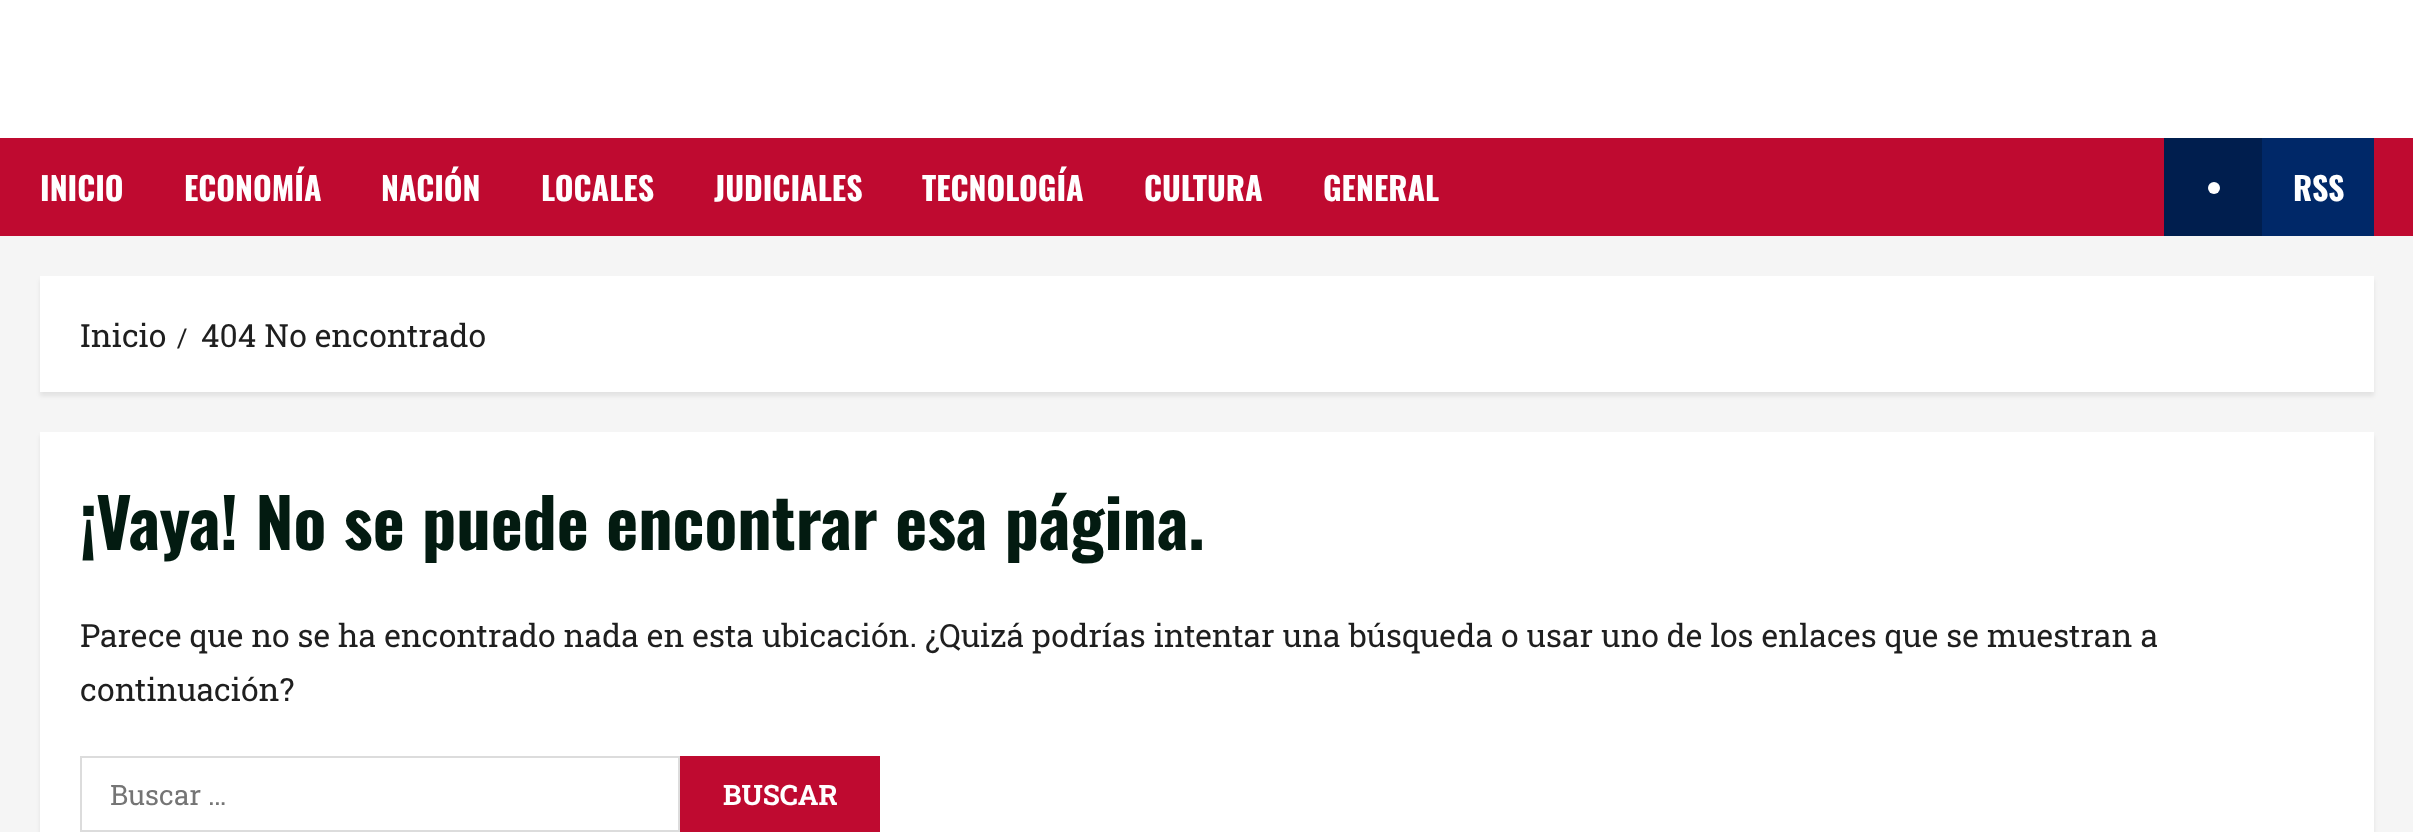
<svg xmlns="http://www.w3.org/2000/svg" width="2413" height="832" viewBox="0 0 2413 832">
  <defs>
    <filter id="blur1" x="-50%" y="-200%" width="200%" height="500%"><feGaussianBlur stdDeviation="2"/></filter>
  </defs>
  <rect width="100%" height="100%" fill="#f5f5f5"/>
  <rect x="0" y="0" width="2413" height="138" fill="#ffffff"/>
  <rect x="0" y="138" width="2413" height="98" fill="#bf0a30"/>
  <text x="40" y="201" font-family="Oswald" font-size="32" font-weight="bold" fill="#ffffff">INICIO</text>
  <text x="184" y="201" font-family="Oswald" font-size="32" font-weight="bold" fill="#ffffff">ECONOMÍA</text>
  <text x="381" y="201" font-family="Oswald" font-size="32" font-weight="bold" fill="#ffffff">NACIÓN</text>
  <text x="541" y="201" font-family="Oswald" font-size="32" font-weight="bold" fill="#ffffff">LOCALES</text>
  <text x="714" y="201" font-family="Oswald" font-size="32" font-weight="bold" fill="#ffffff">JUDICIALES</text>
  <text x="922" y="201" font-family="Oswald" font-size="32" font-weight="bold" fill="#ffffff">TECNOLOGÍA</text>
  <text x="1144" y="201" font-family="Oswald" font-size="32" font-weight="bold" fill="#ffffff">CULTURA</text>
  <text x="1323" y="201" font-family="Oswald" font-size="32" font-weight="bold" fill="#ffffff">GENERAL</text>
  <rect x="2262" y="138" width="112" height="98" fill="#002868"/>
  <rect x="2164" y="138" width="98" height="98" fill="#001e4e"/>
  <circle cx="2214" cy="188" r="6" fill="#ffffff"/>
  <text x="2293" y="201" font-family="Oswald" font-size="32" font-weight="bold" fill="#ffffff">RSS</text>
  <rect x="40" y="280" width="2334" height="116" fill="#000000" fill-opacity="0.08" filter="url(#blur1)"/>
  <rect x="40" y="276" width="2334" height="116" fill="#ffffff"/>
  <text x="80" y="347" font-family="Roboto Slab" font-size="32" fill="#1f1f1f">Inicio</text>
  <text x="177" y="347" font-family="Roboto Slab" font-size="26" fill="#1f1f1f">/</text>
  <text x="201" y="347" font-family="Roboto Slab" font-size="32" fill="#1f1f1f">404 No encontrado</text>
  <rect x="40" y="436" width="2334" height="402" fill="#000000" fill-opacity="0.08" filter="url(#blur1)"/>
  <rect x="40" y="432" width="2334" height="400" fill="#ffffff"/>
  <text x="80" y="550" font-family="Oswald" font-size="68" font-weight="bold" fill="#031b11">¡Vaya! No se puede encontrar esa página.</text>
  <text x="80" y="647" font-family="Roboto Slab" font-size="32" fill="#1f1f1f">Parece que no se ha encontrado nada en esta ubicación. ¿Quizá podrías intentar una búsqueda o usar uno de los enlaces que se muestran a</text>
  <text x="80" y="701" font-family="Roboto Slab" font-size="32" fill="#1f1f1f">continuación?</text>
  <rect x="81" y="757" width="598" height="74" fill="none" stroke="#dcdcdc" stroke-width="2"/>
  <text x="110" y="805" font-family="Roboto Slab" font-size="28" fill="#757575">Buscar …</text>
  <rect x="680" y="756" width="200" height="76" fill="#bf0a30"/>
  <text x="723" y="805" font-family="Roboto Slab" font-size="28" font-weight="bold" fill="#ffffff">BUSCAR</text>
</svg>
